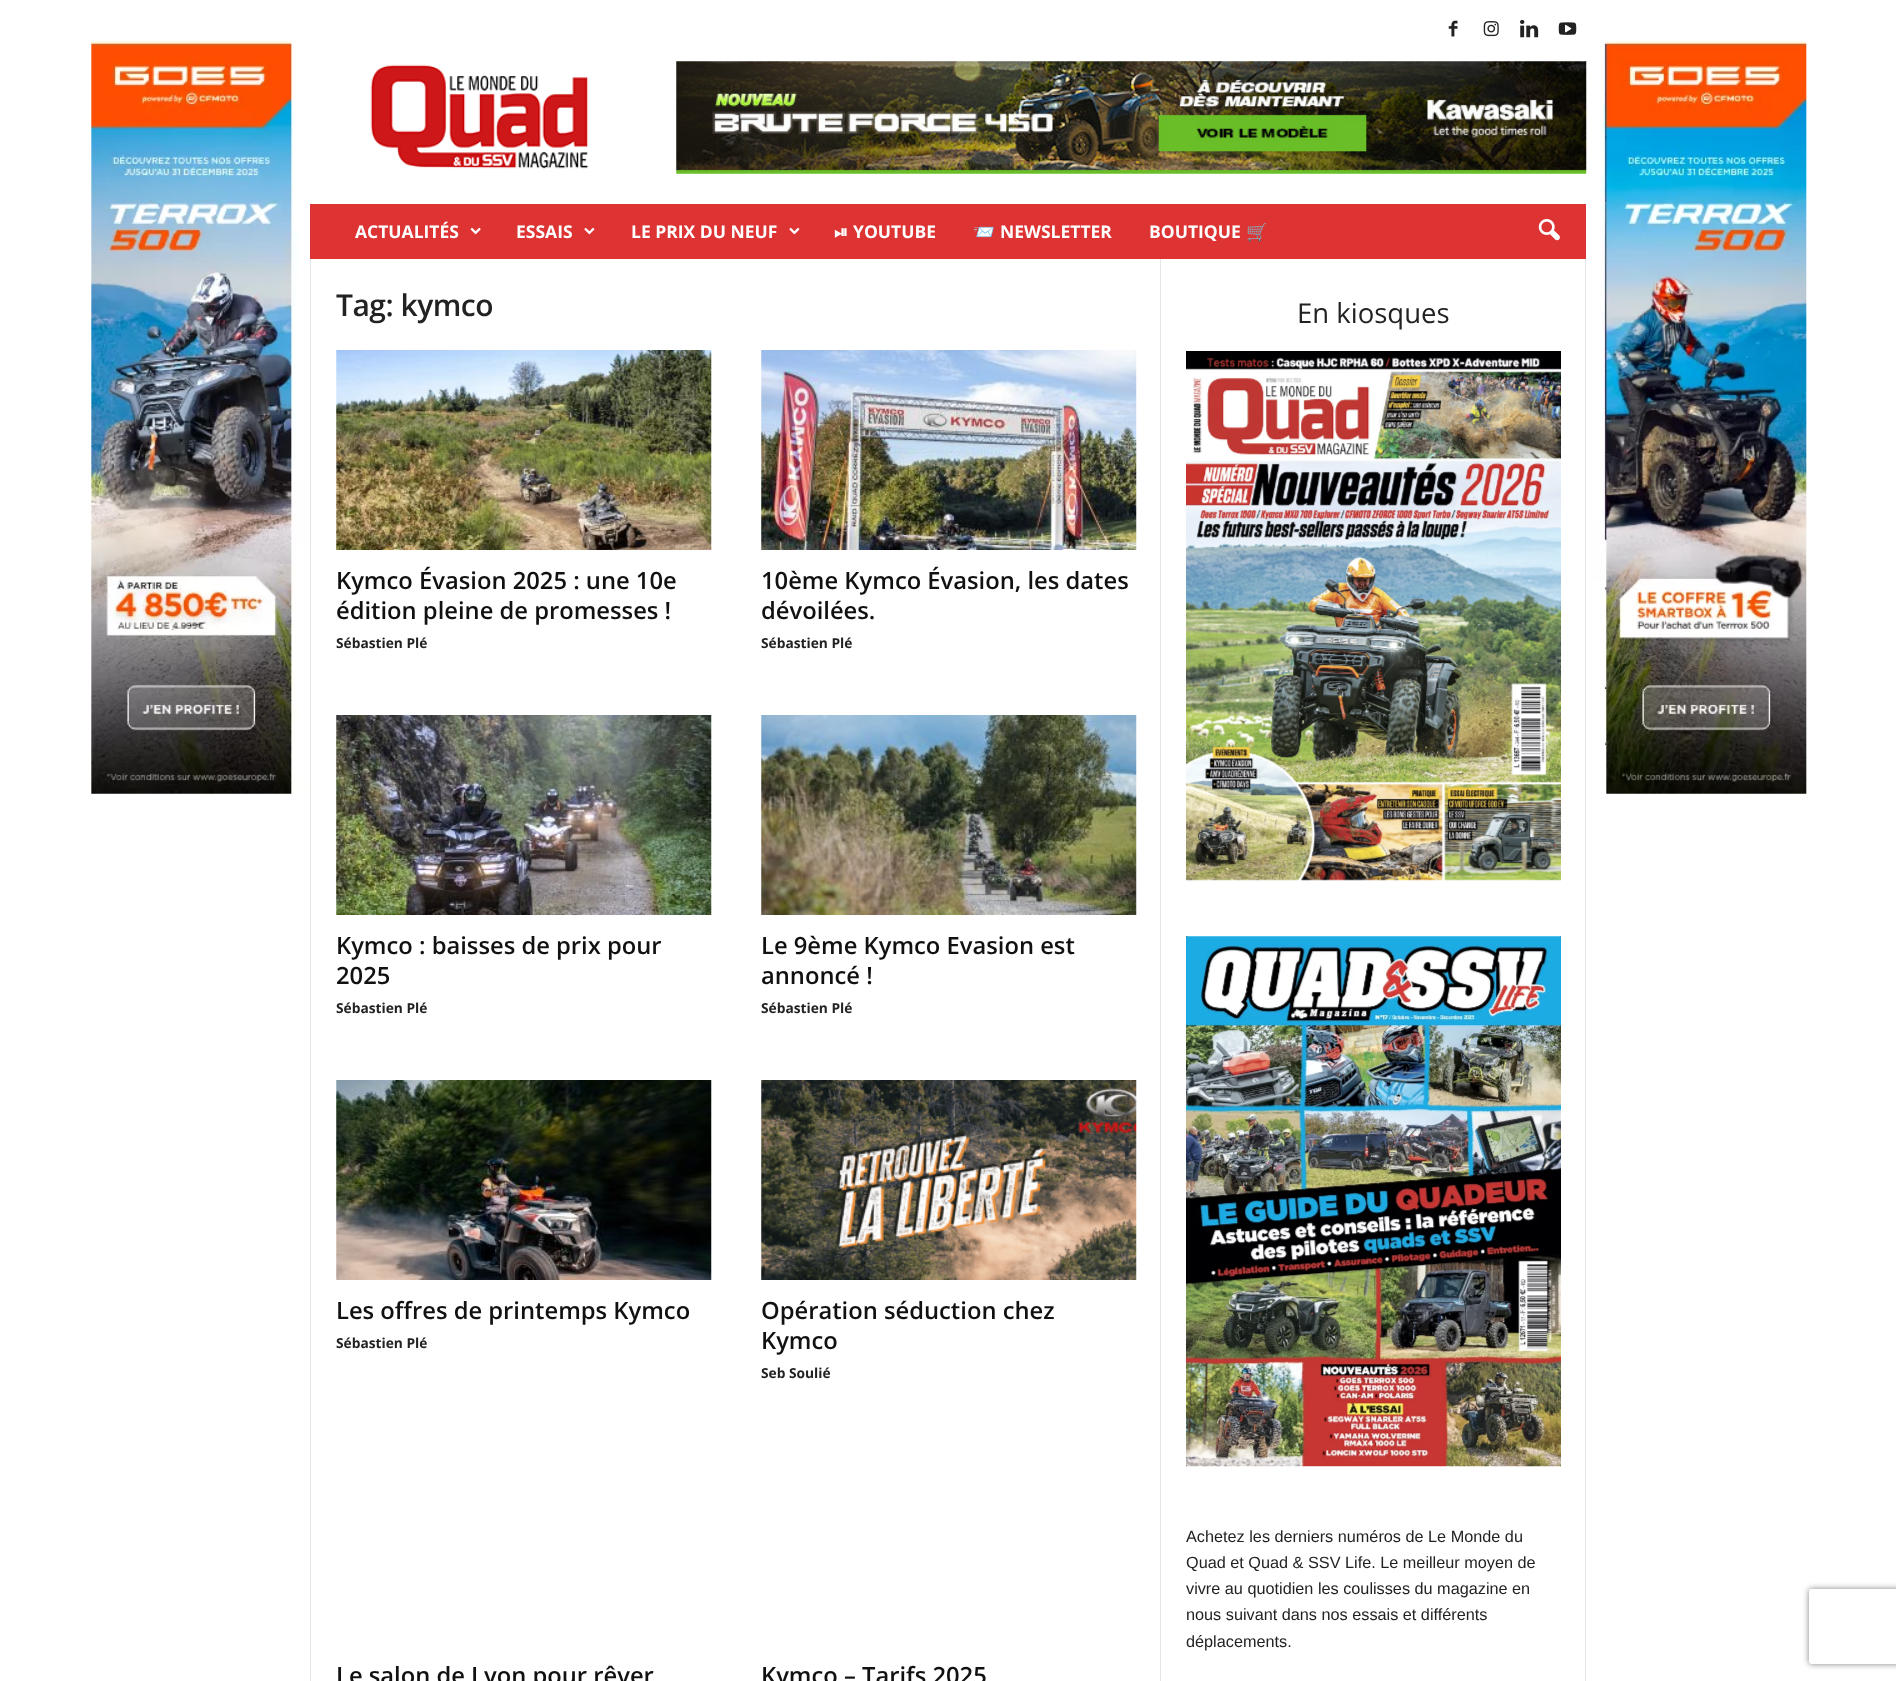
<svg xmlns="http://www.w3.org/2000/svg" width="1896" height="1681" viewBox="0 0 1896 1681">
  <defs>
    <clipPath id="clip1"><path d="M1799 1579H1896V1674H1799ZM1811.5 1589H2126.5C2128 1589 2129 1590 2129 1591.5V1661.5C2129 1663 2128 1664 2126.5 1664H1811.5C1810 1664 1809 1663 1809 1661.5V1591.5C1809 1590 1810 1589 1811.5 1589Z" clip-rule="evenodd"/></clipPath>
    <filter id="blur1" x="-50%" y="-200%" width="200%" height="500%"><feGaussianBlur stdDeviation="3"/></filter>
  </defs>
  <rect width="100%" height="100%" fill="#ffffff"/>
  <image x="91" y="40" width="1716" height="754" href="img1.png"/>
  <image x="1448" y="20" width="10" height="17" href="img2.png"/>
  <image x="1483" y="21" width="16" height="16" href="img3.png"/>
  <image x="1520" y="19" width="19" height="19" href="img4.png"/>
  <image x="1558" y="22" width="19" height="13" href="img5.png"/>
  <image x="370" y="64" width="219" height="105" href="img6.png"/>
  <image x="676" y="61" width="911" height="113" href="img7.png"/>
  <rect x="310" y="204" width="1276" height="55" fill="#dd3333"/>
  <text x="355" y="238" font-family="Open Sans" font-size="17.5" font-weight="bold" fill="#ffffff">ACTUALITÉS</text>
  <image x="470" y="227" width="11" height="8" href="img8.png"/>
  <text x="516" y="238" font-family="Open Sans" font-size="17.5" font-weight="bold" fill="#ffffff">ESSAIS</text>
  <image x="584" y="227" width="11" height="8" href="img9.png"/>
  <text x="631" y="238" font-family="Open Sans" font-size="17.5" font-weight="bold" fill="#ffffff">LE PRIX DU NEUF</text>
  <image x="789" y="227" width="11" height="8" href="img9.png"/>
  <text x="834" y="238" font-family="FreeSans" font-size="17.5" font-weight="bold" fill="#ffffff">⏯</text>
  <text x="853" y="238" font-family="Open Sans" font-size="17.5" font-weight="bold" fill="#ffffff">YOUTUBE</text>
  <text x="973" y="238" font-family="Noto Color Emoji" font-size="17.5" font-weight="bold" fill="#ffffff">📨</text>
  <text x="1000" y="238" font-family="Open Sans" font-size="17.5" font-weight="bold" fill="#ffffff">NEWSLETTER</text>
  <text x="1149" y="238" font-family="Open Sans" font-size="17.5" font-weight="bold" fill="#ffffff">BOUTIQUE</text>
  <text x="1246" y="238" font-family="Noto Color Emoji" font-size="17.5" font-weight="bold" fill="#ffffff">🛒</text>
  <image x="1538" y="219" width="22" height="22" href="img10.png"/>
  <rect x="310" y="259" width="1" height="1422" fill="#e6e6e6"/>
  <text x="336" y="316" font-family="Open Sans" font-size="30" font-weight="600" letter-spacing="-0.5" fill="#222222">Tag: kymco</text>
  <image x="336" y="350" width="376" height="200" href="img11.png"/>
  <text x="336" y="589" font-family="Open Sans" font-size="23.75" font-weight="600" fill="#111111">Kymco Évasion 2025 : une 10e</text>
  <text x="336" y="619" font-family="Open Sans" font-size="23.75" font-weight="600" fill="#111111">édition pleine de promesses !</text>
  <text x="336" y="648" font-family="Open Sans" font-size="13.75" font-weight="bold" fill="#222222">Sébastien Plé</text>
  <image x="761" y="350" width="376" height="200" href="img12.png"/>
  <text x="761" y="589" font-family="Open Sans" font-size="23.75" font-weight="600" fill="#111111">10ème Kymco Évasion, les dates</text>
  <text x="761" y="619" font-family="Open Sans" font-size="23.75" font-weight="600" fill="#111111">dévoilées.</text>
  <text x="761" y="648" font-family="Open Sans" font-size="13.75" font-weight="bold" fill="#222222">Sébastien Plé</text>
  <image x="336" y="715" width="376" height="200" href="img13.png"/>
  <text x="336" y="954" font-family="Open Sans" font-size="23.75" font-weight="600" fill="#111111">Kymco : baisses de prix pour</text>
  <text x="336" y="984" font-family="Open Sans" font-size="23.75" font-weight="600" fill="#111111">2025</text>
  <text x="336" y="1013" font-family="Open Sans" font-size="13.75" font-weight="bold" fill="#222222">Sébastien Plé</text>
  <image x="761" y="715" width="376" height="200" href="img14.png"/>
  <text x="761" y="954" font-family="Open Sans" font-size="23.75" font-weight="600" fill="#111111">Le 9ème Kymco Evasion est</text>
  <text x="761" y="984" font-family="Open Sans" font-size="23.75" font-weight="600" fill="#111111">annoncé !</text>
  <text x="761" y="1013" font-family="Open Sans" font-size="13.75" font-weight="bold" fill="#222222">Sébastien Plé</text>
  <image x="336" y="1080" width="376" height="200" href="img15.png"/>
  <text x="336" y="1319" font-family="Open Sans" font-size="23.75" font-weight="600" fill="#111111">Les offres de printemps Kymco</text>
  <text x="336" y="1348" font-family="Open Sans" font-size="13.75" font-weight="bold" fill="#222222">Sébastien Plé</text>
  <image x="761" y="1080" width="376" height="200" href="img16.png"/>
  <text x="761" y="1319" font-family="Open Sans" font-size="23.75" font-weight="600" fill="#111111">Opération séduction chez</text>
  <text x="761" y="1349" font-family="Open Sans" font-size="23.75" font-weight="600" fill="#111111">Kymco</text>
  <text x="761" y="1378" font-family="Open Sans" font-size="13.75" font-weight="bold" fill="#222222">Seb Soulié</text>
  <text x="336" y="1684" font-family="Open Sans" font-size="23.75" font-weight="600" fill="#111111">Le salon de Lyon pour rêver</text>
  <text x="761" y="1684" font-family="Open Sans" font-size="23.75" font-weight="600" fill="#111111">Kymco – Tarifs 2025</text>
  <rect x="1160" y="259" width="1" height="1422" fill="#e6e6e6"/>
  <text x="1297" y="323" font-family="Open Sans" font-size="27.5" fill="#222222">En kiosques</text>
  <image x="1186" y="351" width="375" height="530" href="img17.png"/>
  <image x="1186" y="936" width="375" height="531" href="img18.png"/>
  <text x="1186" y="1542" font-family="Liberation Sans" font-size="16.25" fill="#222222">Achetez les derniers numéros de Le Monde du</text>
  <text x="1186" y="1568" font-family="Liberation Sans" font-size="16.25" fill="#222222">Quad et Quad &amp; SSV Life. Le meilleur moyen de</text>
  <text x="1186" y="1594" font-family="Liberation Sans" font-size="16.25" fill="#222222">vivre au quotidien les coulisses du magazine en</text>
  <text x="1186" y="1620" font-family="Liberation Sans" font-size="16.25" fill="#222222">nous suivant dans nos essais et différents</text>
  <text x="1186" y="1647" font-family="Liberation Sans" font-size="16.25" fill="#222222">déplacements.</text>
  <rect x="1585" y="259" width="1" height="1422" fill="#e6e6e6"/>
  <g clip-path="url(#clip1)">
    <rect x="1809" y="1589" width="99" height="75" rx="2.5" fill="#808080" filter="url(#blur1)"/>
  </g>
</svg>
